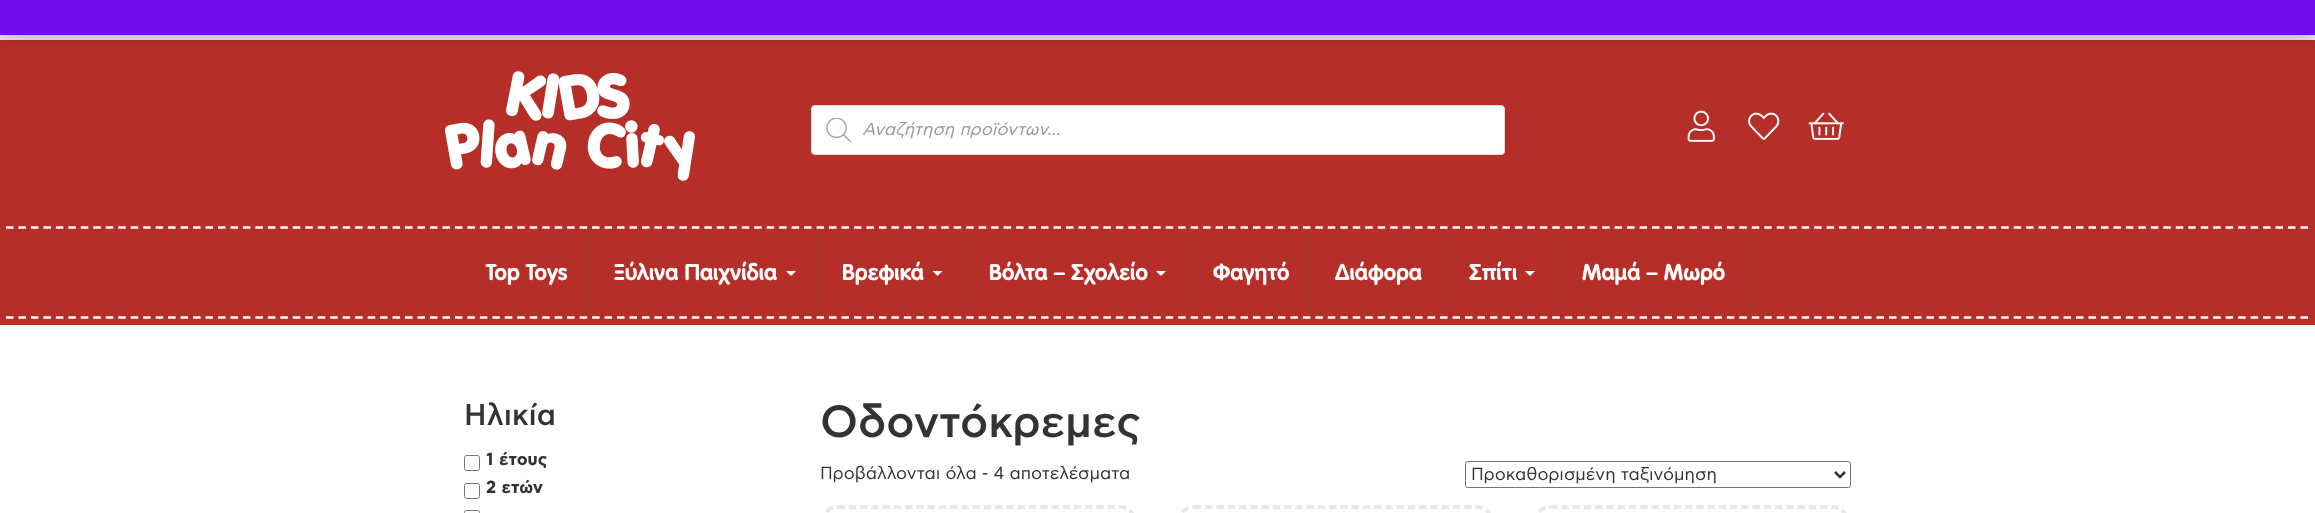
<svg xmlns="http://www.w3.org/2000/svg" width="2315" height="513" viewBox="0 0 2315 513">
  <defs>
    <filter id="blur1" x="-50%" y="-200%" width="200%" height="500%"><feGaussianBlur stdDeviation="9"/></filter>
  </defs>
  <rect width="100%" height="100%" fill="#ffffff"/>
  <rect x="0" y="40" width="2315" height="285" fill="#b62e28"/>
  <rect x="0" y="35" width="2315" height="5" fill="#e4e4e4"/>
  <rect x="0" y="1" width="2315" height="35" fill="#000000" fill-opacity="0.2" filter="url(#blur1)"/>
  <rect x="0" y="0" width="2315" height="35" fill="#720eec"/>
  <image x="445" y="71" width="250" height="110" href="img1.png"/>
  <rect x="811.5" y="105.5" width="693" height="49" rx="3.5" fill="#ffffff" stroke="#dddddd"/>
  <image x="826" y="118" width="25" height="25" href="img2.png"/>
  <text x="862" y="135" font-family="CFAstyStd" font-size="17.5" font-style="italic" fill="#999999">Αναζήτηση προϊόντων...</text>
  <image x="1687" y="110" width="28" height="32" href="img3.png"/>
  <image x="1748" y="112" width="32" height="28" href="img4.png"/>
  <image x="1808" y="112" width="36" height="28" href="img5.png"/>
  <path d="M6 227.5H2309" fill="none" stroke="#ffffff" stroke-width="2.5" stroke-dasharray="7.5 4.97"/>
  <path d="M6 317.5H2309" fill="none" stroke="#ffffff" stroke-width="2.5" stroke-dasharray="7.5 4.97"/>
  <rect x="590" y="229" width="1" height="87" fill="#9e3939"/>
  <text x="486" y="280" font-family="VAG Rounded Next" font-size="22.5" font-weight="bold" fill="#ffffff">Top Toys</text>
  <rect x="819" y="229" width="1" height="87" fill="#9e3939"/>
  <text x="614" y="280" font-family="VAG Rounded Next" font-size="22.5" font-weight="bold" fill="#ffffff">Ξύλινα Παιχνίδια</text>
  <path d="M786 271H796L791 276Z" fill="#ffffff"/>
  <rect x="965" y="229" width="1" height="87" fill="#9e3939"/>
  <text x="842" y="280" font-family="VAG Rounded Next" font-size="22.5" font-weight="bold" fill="#ffffff">Βρεφικά</text>
  <path d="M932.5 271H942.5L937.5 276Z" fill="#ffffff"/>
  <rect x="1189" y="229" width="1" height="87" fill="#9e3939"/>
  <text x="989" y="280" font-family="VAG Rounded Next" font-size="22.5" font-weight="bold" fill="#ffffff">Βόλτα – Σχολείο</text>
  <path d="M1156 271H1166L1161 276Z" fill="#ffffff"/>
  <rect x="1311" y="229" width="1" height="87" fill="#9e3939"/>
  <text x="1213" y="280" font-family="VAG Rounded Next" font-size="22.5" font-weight="bold" fill="#ffffff">Φαγητό</text>
  <rect x="1445" y="229" width="1" height="87" fill="#9e3939"/>
  <text x="1335" y="280" font-family="VAG Rounded Next" font-size="22.5" font-weight="bold" fill="#ffffff">Διάφορα</text>
  <rect x="1558" y="229" width="1" height="87" fill="#9e3939"/>
  <text x="1469" y="280" font-family="VAG Rounded Next" font-size="22.5" font-weight="bold" fill="#ffffff">Σπίτι</text>
  <path d="M1525 271H1535L1530 276Z" fill="#ffffff"/>
  <rect x="1748" y="229" width="1" height="87" fill="#9e3939"/>
  <text x="1582" y="280" font-family="VAG Rounded Next" font-size="22.5" font-weight="bold" fill="#ffffff">Μαμά – Μωρό</text>
  <text x="464" y="425" font-family="CF Asty Std" font-size="30" font-weight="500" fill="#333333">Ηλικία</text>
  <rect x="464.5" y="455.5" width="15" height="15" rx="2" fill="none" stroke="#767676"/>
  <text x="486" y="465" font-family="CFAstyStd" font-size="17.5" font-weight="bold" fill="#333333">1 έτους</text>
  <rect x="464.5" y="483.5" width="15" height="15" rx="2" fill="none" stroke="#767676"/>
  <text x="486" y="493" font-family="CFAstyStd" font-size="17.5" font-weight="bold" fill="#333333">2 ετών</text>
  <rect x="464.5" y="510.5" width="15" height="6" rx="2" fill="none" stroke="#767676"/>
  <text x="820" y="437" font-family="CF Asty Std" font-size="45" font-weight="500" fill="#333333">Οδοντόκρεμες</text>
  <text x="820" y="479" font-family="CFAstyStd" font-size="17.5" fill="#333333">Προβάλλονται όλα - 4 αποτελέσματα</text>
  <rect x="1465.5" y="461.5" width="385" height="26" rx="2" fill="none" stroke="#767676"/>
  <path d="M1835 472L1840 477L1845 472" fill="none" stroke="#333333" stroke-width="2.5"/>
  <text x="1471" y="480" font-family="CFAstyStd" font-size="17.5" fill="#333333">Προκαθορισμένη ταξινόμηση</text>
  <path d="M837.5 507H1120C1128.5 507 1135.5 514 1135.5 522.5V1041C1135.5 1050 1128.5 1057 1120 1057H837.5C829 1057 822 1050 822 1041V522.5C822 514 829 507 837.5 507Z" fill="none" stroke="#e8e8e8" stroke-width="3.8" stroke-dasharray="7.5 3.75"/>
  <path d="M1194 507H1476C1485 507 1492 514 1492 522.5V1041C1492 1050 1485 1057 1476 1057H1194C1185 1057 1178 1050 1178 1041V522.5C1178 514 1185 507 1194 507Z" fill="none" stroke="#e8e8e8" stroke-width="3.8" stroke-dasharray="7.5 3.75"/>
  <path d="M1550 507H1832.5C1841 507 1848 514 1848 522.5V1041C1848 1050 1841 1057 1832.5 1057H1550C1541.5 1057 1534.5 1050 1534.5 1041V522.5C1534.5 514 1541.5 507 1550 507Z" fill="none" stroke="#e8e8e8" stroke-width="3.8" stroke-dasharray="7.5 3.75"/>
</svg>
